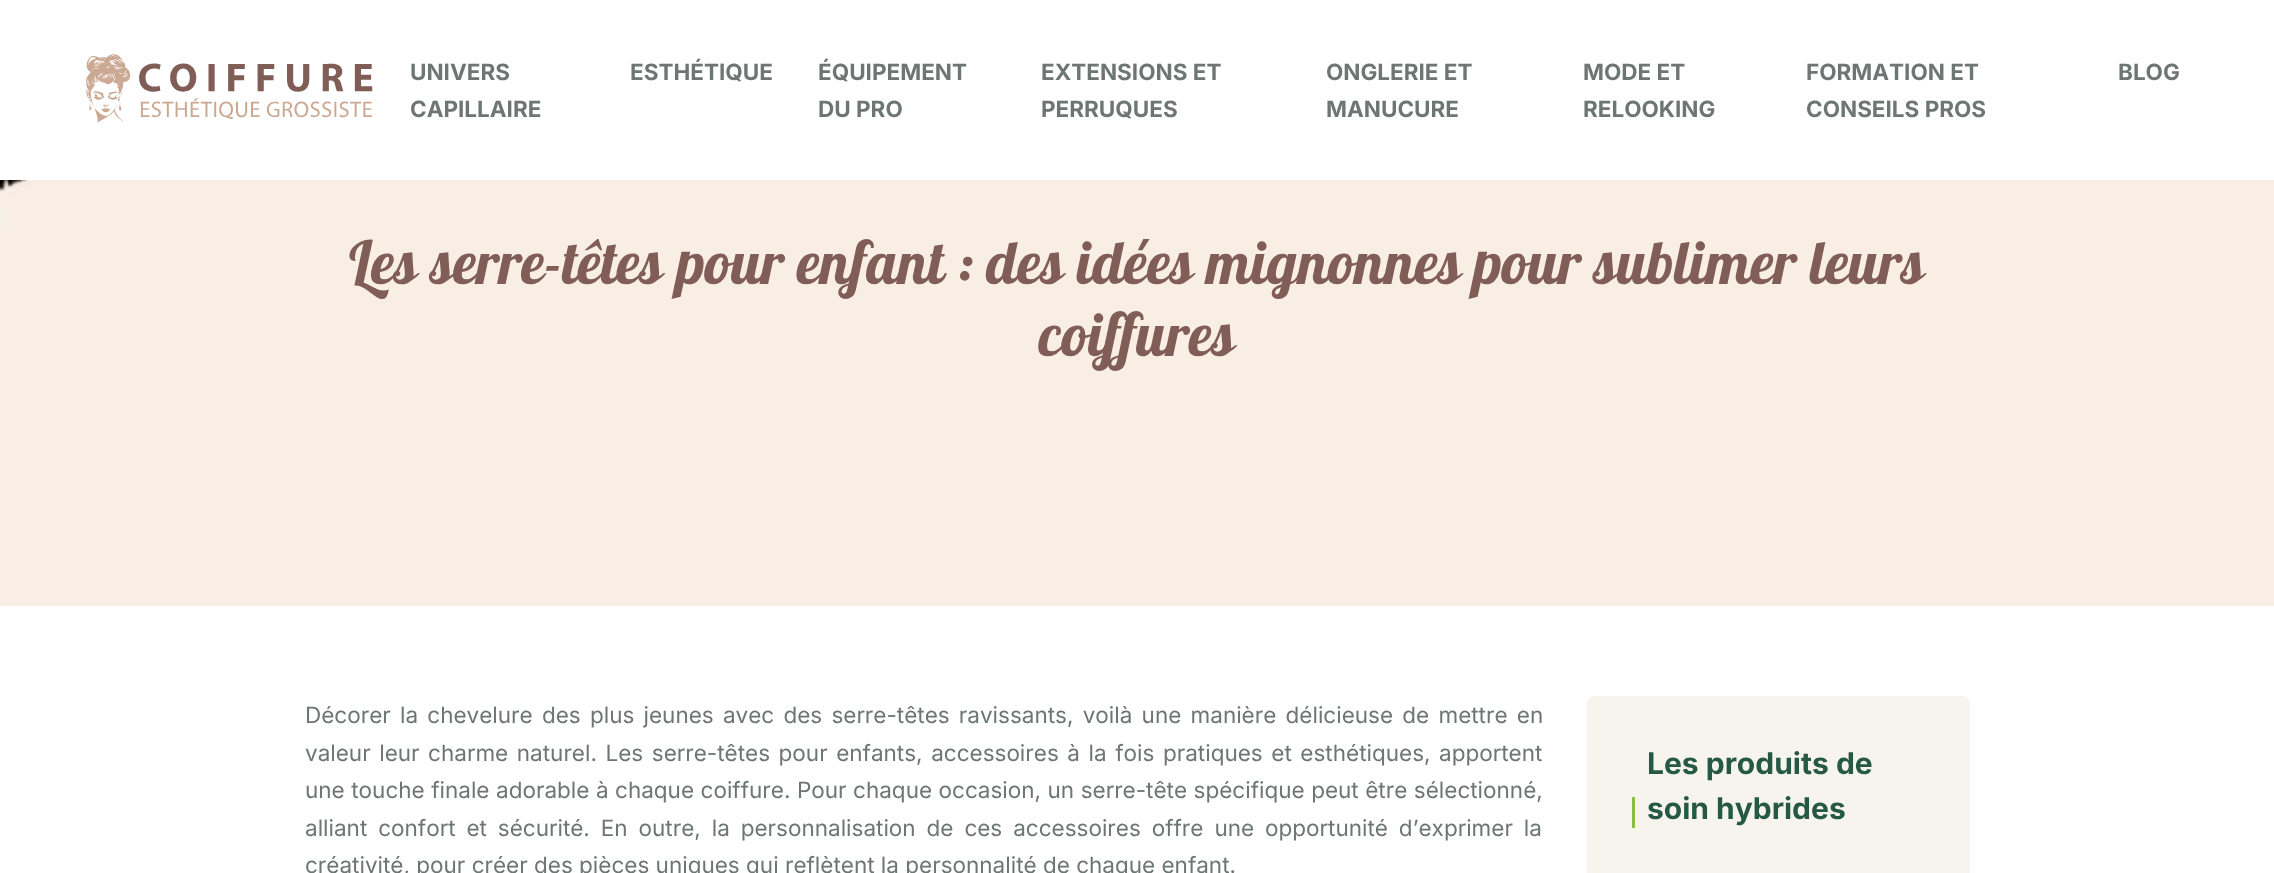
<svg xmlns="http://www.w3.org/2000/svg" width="2274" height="873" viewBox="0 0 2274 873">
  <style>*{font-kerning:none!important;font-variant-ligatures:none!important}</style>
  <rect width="100%" height="100%" fill="#ffffff"/>
  <image x="85" y="54" width="288" height="69" href="img1.png"/>
  <text x="410" y="80" font-family="Inter" font-size="22.5" font-weight="bold" fill="#6e7673">UNIVERS</text>
  <text x="410" y="117" font-family="Inter" font-size="22.5" font-weight="bold" fill="#6e7673">CAPILLAIRE</text>
  <text x="630" y="80" font-family="Inter" font-size="22.5" font-weight="bold" fill="#6e7673">ESTHÉTIQUE</text>
  <text x="818" y="80" font-family="Inter" font-size="22.5" font-weight="bold" fill="#6e7673">ÉQUIPEMENT</text>
  <text x="818" y="117" font-family="Inter" font-size="22.5" font-weight="bold" fill="#6e7673">DU PRO</text>
  <text x="1041" y="80" font-family="Inter" font-size="22.5" font-weight="bold" fill="#6e7673">EXTENSIONS ET</text>
  <text x="1041" y="117" font-family="Inter" font-size="22.5" font-weight="bold" fill="#6e7673">PERRUQUES</text>
  <text x="1326" y="80" font-family="Inter" font-size="22.5" font-weight="bold" fill="#6e7673">ONGLERIE ET</text>
  <text x="1326" y="117" font-family="Inter" font-size="22.5" font-weight="bold" fill="#6e7673">MANUCURE</text>
  <text x="1583" y="80" font-family="Inter" font-size="22.5" font-weight="bold" fill="#6e7673">MODE ET</text>
  <text x="1583" y="117" font-family="Inter" font-size="22.5" font-weight="bold" fill="#6e7673">RELOOKING</text>
  <text x="1806" y="80" font-family="Inter" font-size="22.5" font-weight="bold" fill="#6e7673">FORMATION ET</text>
  <text x="1806" y="117" font-family="Inter" font-size="22.5" font-weight="bold" fill="#6e7673">CONSEILS PROS</text>
  <text x="2118" y="80" font-family="Inter" font-size="22.5" font-weight="bold" fill="#6e7673">BLOG</text>
  <image x="0" y="180" width="2274" height="426" href="img2.png"/>
  <text x="349" y="284" font-family="Lobster" font-size="60" fill="#805d56">Les serre-têtes</text>
  <text x="677" y="284" font-family="Lobster" font-size="60" fill="#805d56">pour enfant : des idées mignonnes</text>
  <text x="1474" y="284" font-family="Lobster" font-size="60" fill="#805d56">pour sublimer leurs</text>
  <text x="1039" y="356" font-family="Lobster" font-size="60" fill="#805d56">coiffures</text>
  <text x="305" y="723" word-spacing="2.9" font-family="Inter" font-size="22.5" fill="#6e7673">Décorer la chevelure des plus jeunes avec des serre-têtes ravissants, voilà une manière délicieuse de mettre en</text>
  <text x="305" y="761" word-spacing="2.25" font-family="Inter" font-size="22.5" fill="#6e7673">valeur leur charme naturel. Les serre-têtes pour enfants, accessoires à la fois pratiques et esthétiques, apportent</text>
  <text x="305" y="798" word-spacing="0.2" font-family="Inter" font-size="22.5" fill="#6e7673">une touche finale adorable à chaque coiffure. Pour chaque occasion, un serre-tête spécifique peut être sélectionné,</text>
  <text x="305" y="836" word-spacing="4.6" font-family="Inter" font-size="22.5" fill="#6e7673">alliant confort et sécurité. En outre, la personnalisation de ces accessoires offre une opportunité d’exprimer la</text>
  <text x="305" y="873" font-family="Inter" font-size="22.5" fill="#6e7673">créativité, pour créer des pièces uniques qui reflètent la personnalité de chaque enfant.</text>
  <rect x="1587" y="696" width="383" height="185" rx="8" fill="#f6f4ec"/>
  <text x="1647" y="774" font-family="Inter" font-size="30" font-weight="bold" fill="#255946">Les produits de</text>
  <rect x="1632" y="797" width="3" height="31" fill="#87c03d"/>
  <text x="1647" y="819" font-family="Inter" font-size="30" font-weight="bold" fill="#255946">soin hybrides</text>
</svg>
